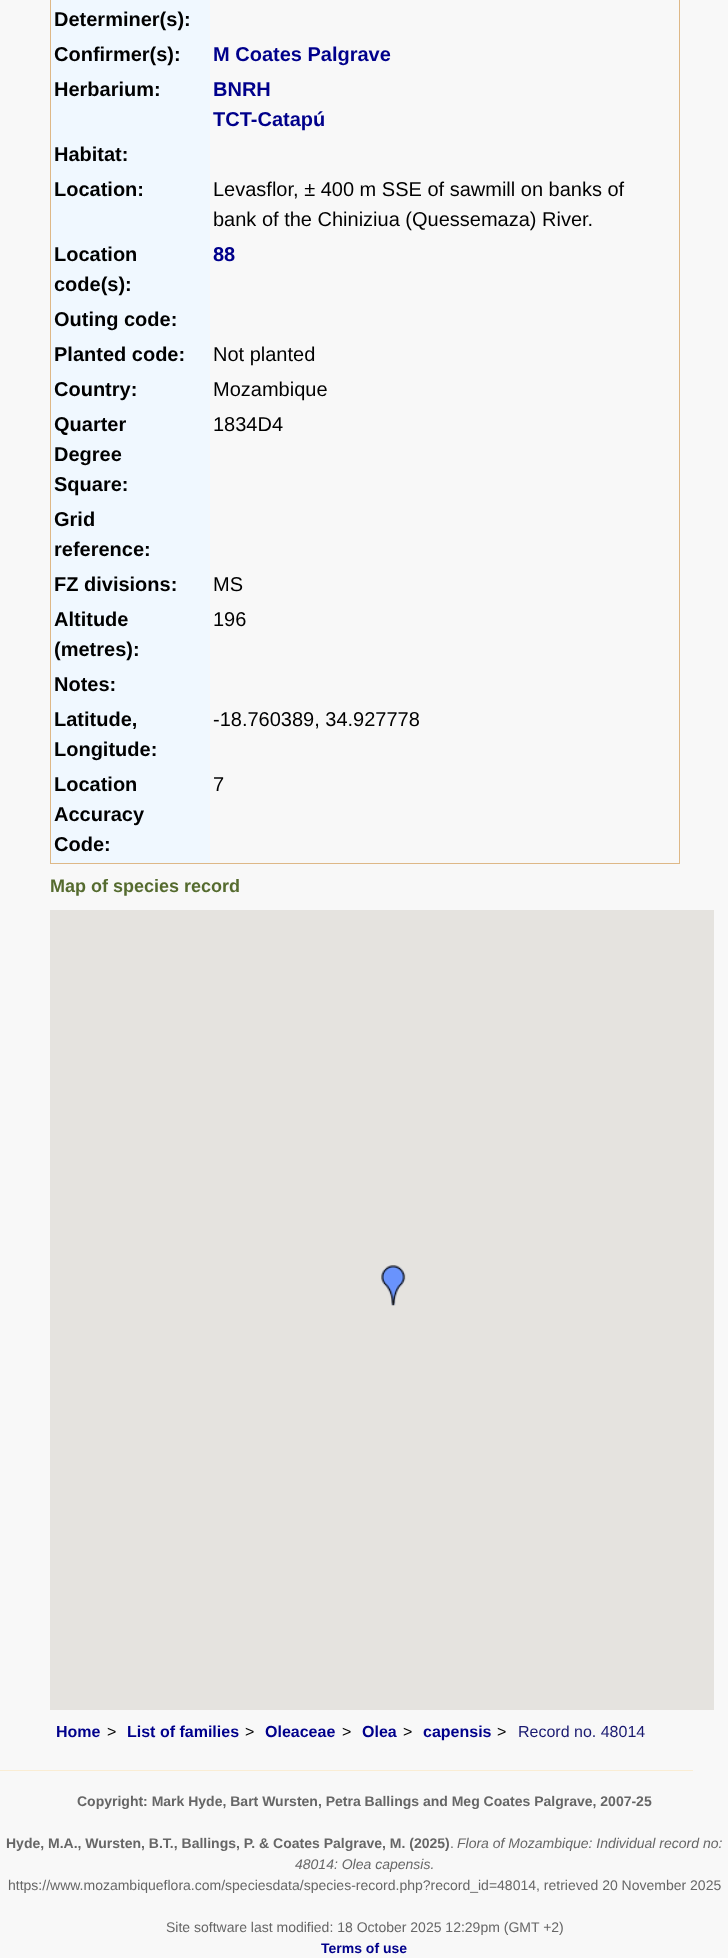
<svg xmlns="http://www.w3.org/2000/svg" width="728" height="1958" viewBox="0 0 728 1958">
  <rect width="100%" height="100%" fill="#f8f8f8"/>
  <rect x="679" y="0" width="1" height="864" fill="#deb887"/>
  <rect x="50" y="863" width="630" height="1" fill="#deb887"/>
  <rect x="50" y="0" width="160" height="3" fill="#f0f8ff"/>
  <rect x="50" y="0" width="1" height="864" fill="#deb887"/>
  <rect x="51" y="3" width="159" height="860" fill="#f0f8ff"/>
  <text x="54" y="26" font-family="Liberation Sans" font-size="20" font-weight="bold" fill="#000000">Determiner(s):</text>
  <text x="54" y="61" font-family="Liberation Sans" font-size="20" font-weight="bold" fill="#000000">Confirmer(s):</text>
  <text x="213" y="61" font-family="Liberation Sans" font-size="20" font-weight="bold" fill="#00008b">M Coates Palgrave</text>
  <text x="54" y="96" font-family="Liberation Sans" font-size="20" font-weight="bold" fill="#000000">Herbarium:</text>
  <text x="213" y="96" font-family="Liberation Sans" font-size="20" font-weight="bold" fill="#00008b">BNRH</text>
  <text x="213" y="126" font-family="Liberation Sans" font-size="20" font-weight="bold" fill="#00008b">TCT-Catapú</text>
  <text x="54" y="161" font-family="Liberation Sans" font-size="20" font-weight="bold" fill="#000000">Habitat:</text>
  <text x="54" y="196" font-family="Liberation Sans" font-size="20" font-weight="bold" fill="#000000">Location:</text>
  <text x="213" y="196" font-family="Liberation Sans" font-size="20" fill="#000000">Levasflor, ± 400 m SSE of sawmill on banks of</text>
  <text x="213" y="226" font-family="Liberation Sans" font-size="20" fill="#000000">bank of the Chiniziua (Quessemaza) River.</text>
  <text x="54" y="261" font-family="Liberation Sans" font-size="20" font-weight="bold" fill="#000000">Location</text>
  <text x="54" y="291" font-family="Liberation Sans" font-size="20" font-weight="bold" fill="#000000">code(s):</text>
  <text x="213" y="261" font-family="Liberation Sans" font-size="20" font-weight="bold" fill="#00008b">88</text>
  <text x="54" y="326" font-family="Liberation Sans" font-size="20" font-weight="bold" fill="#000000">Outing code:</text>
  <text x="54" y="361" font-family="Liberation Sans" font-size="20" font-weight="bold" fill="#000000">Planted code:</text>
  <text x="213" y="361" font-family="Liberation Sans" font-size="20" fill="#000000">Not planted</text>
  <text x="54" y="396" font-family="Liberation Sans" font-size="20" font-weight="bold" fill="#000000">Country:</text>
  <text x="213" y="396" font-family="Liberation Sans" font-size="20" fill="#000000">Mozambique</text>
  <text x="54" y="431" font-family="Liberation Sans" font-size="20" font-weight="bold" fill="#000000">Quarter</text>
  <text x="54" y="461" font-family="Liberation Sans" font-size="20" font-weight="bold" fill="#000000">Degree</text>
  <text x="54" y="491" font-family="Liberation Sans" font-size="20" font-weight="bold" fill="#000000">Square:</text>
  <text x="213" y="431" font-family="Liberation Sans" font-size="20" fill="#000000">1834D4</text>
  <text x="54" y="526" font-family="Liberation Sans" font-size="20" font-weight="bold" fill="#000000">Grid</text>
  <text x="54" y="556" font-family="Liberation Sans" font-size="20" font-weight="bold" fill="#000000">reference:</text>
  <text x="54" y="591" font-family="Liberation Sans" font-size="20" font-weight="bold" fill="#000000">FZ divisions:</text>
  <text x="213" y="591" font-family="Liberation Sans" font-size="20" fill="#000000">MS</text>
  <text x="54" y="626" font-family="Liberation Sans" font-size="20" font-weight="bold" fill="#000000">Altitude</text>
  <text x="54" y="656" font-family="Liberation Sans" font-size="20" font-weight="bold" fill="#000000">(metres):</text>
  <text x="213" y="626" font-family="Liberation Sans" font-size="20" fill="#000000">196</text>
  <text x="54" y="691" font-family="Liberation Sans" font-size="20" font-weight="bold" fill="#000000">Notes:</text>
  <text x="54" y="726" font-family="Liberation Sans" font-size="20" font-weight="bold" fill="#000000">Latitude,</text>
  <text x="54" y="756" font-family="Liberation Sans" font-size="20" font-weight="bold" fill="#000000">Longitude:</text>
  <text x="213" y="726" font-family="Liberation Sans" font-size="20" fill="#000000">-18.760389, 34.927778</text>
  <text x="54" y="791" font-family="Liberation Sans" font-size="20" font-weight="bold" fill="#000000">Location</text>
  <text x="54" y="821" font-family="Liberation Sans" font-size="20" font-weight="bold" fill="#000000">Accuracy</text>
  <text x="54" y="851" font-family="Liberation Sans" font-size="20" font-weight="bold" fill="#000000">Code:</text>
  <text x="213" y="791" font-family="Liberation Sans" font-size="20" fill="#000000">7</text>
  <text x="50" y="892" font-family="Liberation Sans" font-size="18" font-weight="bold" fill="#556b2f">Map of species record</text>
  <rect x="50" y="910" width="664" height="800" fill="#e5e3df"/>
  <image x="381" y="1265" width="25" height="41" href="img1.png"/>
  <text x="56" y="1737" font-family="Liberation Sans" font-size="16" font-weight="bold" fill="#00008b">Home</text>
  <text x="107" y="1737" font-family="Liberation Sans" font-size="16" fill="#000000">&gt;</text>
  <text x="127" y="1737" font-family="Liberation Sans" font-size="16" font-weight="bold" fill="#00008b">List of families</text>
  <text x="245" y="1737" font-family="Liberation Sans" font-size="16" fill="#000000">&gt;</text>
  <text x="265" y="1737" font-family="Liberation Sans" font-size="16" font-weight="bold" fill="#00008b">Oleaceae</text>
  <text x="342" y="1737" font-family="Liberation Sans" font-size="16" fill="#000000">&gt;</text>
  <text x="362" y="1737" font-family="Liberation Sans" font-size="16" font-weight="bold" fill="#00008b">Olea</text>
  <text x="403" y="1737" font-family="Liberation Sans" font-size="16" fill="#000000">&gt;</text>
  <text x="423" y="1737" font-family="Liberation Sans" font-size="16" font-weight="bold" fill="#00008b">capensis</text>
  <text x="497" y="1737" font-family="Liberation Sans" font-size="16" fill="#000000">&gt;</text>
  <text x="518" y="1737" font-family="Liberation Sans" font-size="16" fill="#191970">Record no. 48014</text>
  <rect x="0" y="1770" width="693" height="1" fill="#faedd4"/>
  <text x="77" y="1806" font-family="Liberation Sans" font-size="14" font-weight="bold" fill="#666666">Copyright: Mark Hyde, Bart Wursten, Petra Ballings and Meg Coates Palgrave, 2007-25</text>
  <text x="6" y="1848" font-family="Liberation Sans" font-size="14" font-weight="bold" fill="#666666">Hyde, M.A., Wursten, B.T., Ballings, P. &amp; Coates Palgrave, M. (2025)</text>
  <text x="450" y="1848" font-family="Liberation Sans" font-size="14" fill="#666666">.</text>
  <text x="457" y="1848" font-family="Liberation Sans" font-size="14" font-style="italic" fill="#666666">Flora of Mozambique: Individual record no:</text>
  <text x="295" y="1869" font-family="Liberation Sans" font-size="14" font-style="italic" fill="#666666">48014: Olea capensis.</text>
  <text x="8" y="1890" font-family="Liberation Sans" font-size="14" fill="#666666">https://www.mozambiqueflora.com/speciesdata/species-record.php?record_id=48014, retrieved 20 November 2025</text>
  <text x="166" y="1932" font-family="Liberation Sans" font-size="14" fill="#666666">Site software last modified: 18 October 2025 12:29pm (GMT +2)</text>
  <text x="321" y="1953" font-family="Liberation Sans" font-size="14" font-weight="bold" fill="#00008b">Terms of use</text>
</svg>
